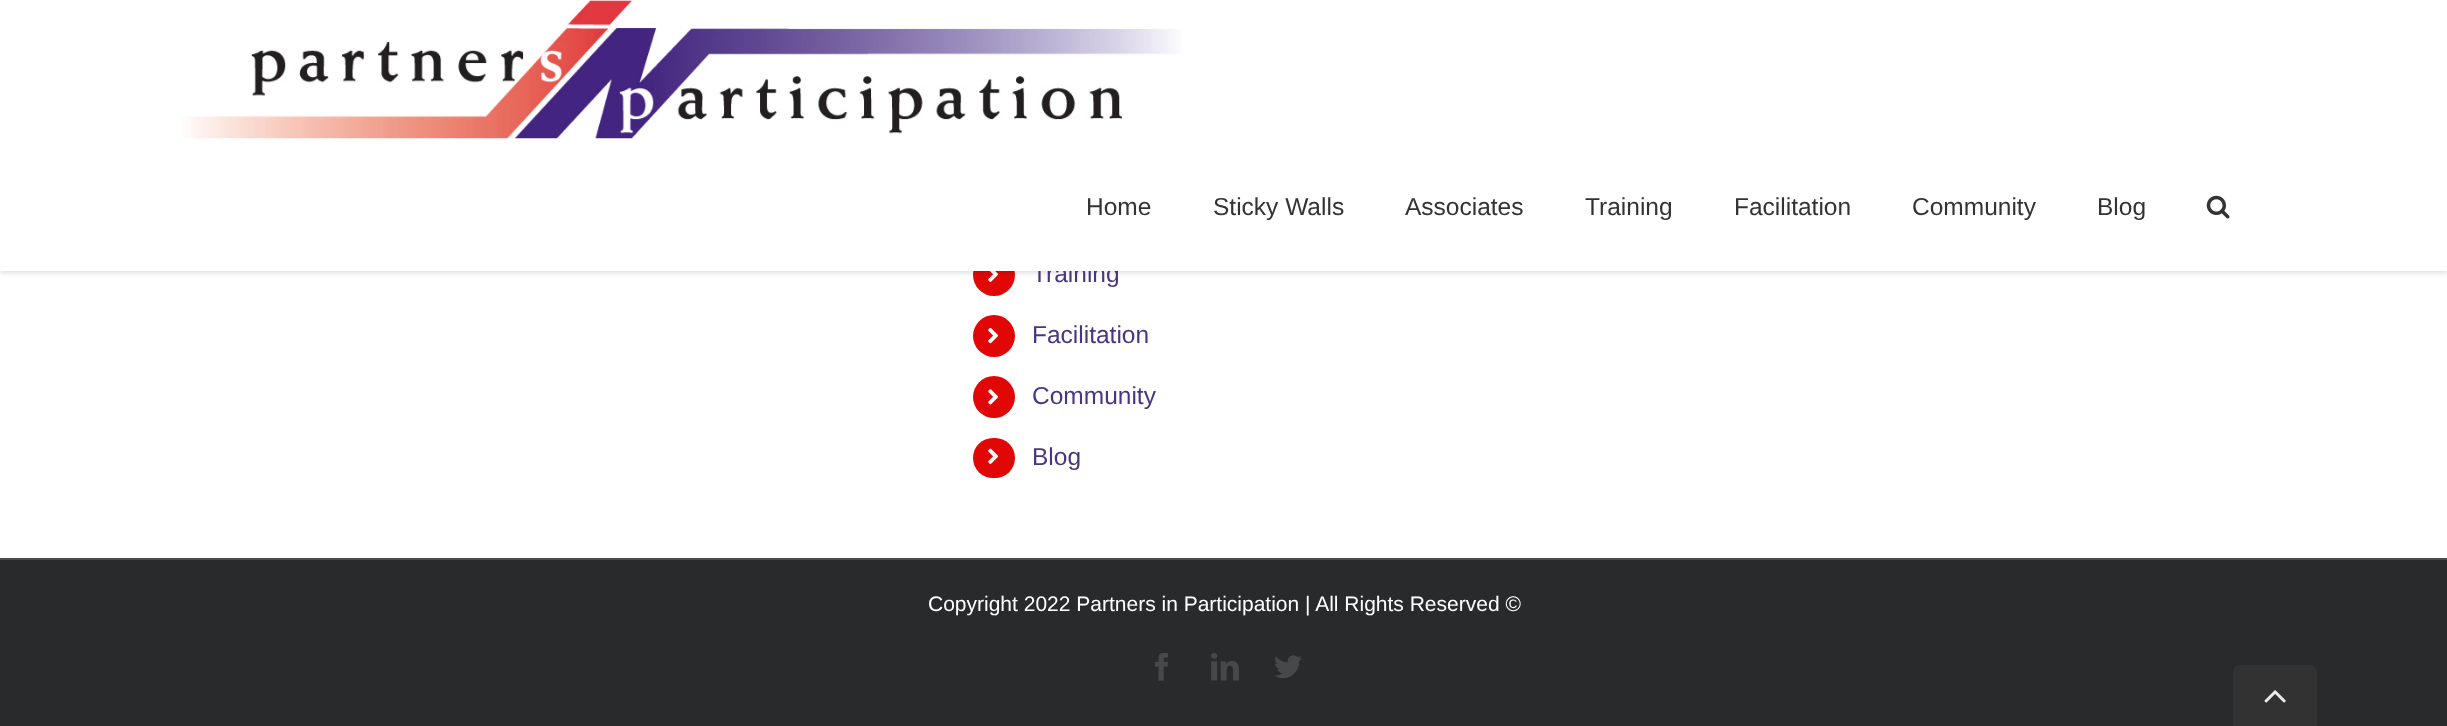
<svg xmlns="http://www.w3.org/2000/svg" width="2447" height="726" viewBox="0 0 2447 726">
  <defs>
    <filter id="blur1" x="-50%" y="-200%" width="200%" height="500%"><feGaussianBlur stdDeviation="2.5"/></filter>
  </defs>
  <rect width="100%" height="100%" fill="#ffffff"/>
  <circle cx="994" cy="275" r="21" fill="#e10707"/>
  <image x="988" y="271" width="10" height="11" href="img3.png"/>
  <rect x="0" y="2" width="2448" height="271" fill="#000000" fill-opacity="0.12" filter="url(#blur1)"/>
  <text x="1032" y="282" font-family="Liberation Sans" font-size="24.5" fill="#4a3582">Training</text>
  <rect x="0" y="0" width="2447" height="271" fill="#ffffff"/>
  <image x="182" y="0" width="999" height="139" href="img1.png"/>
  <text x="1086" y="215" font-family="Liberation Sans" font-size="24.5" fill="#333333">Home</text>
  <text x="1213" y="215" font-family="Liberation Sans" font-size="24.5" fill="#333333">Sticky Walls</text>
  <text x="1405" y="215" font-family="Liberation Sans" font-size="24.5" fill="#333333">Associates</text>
  <text x="1585" y="215" font-family="Liberation Sans" font-size="24.5" fill="#333333">Training</text>
  <text x="1734" y="215" font-family="Liberation Sans" font-size="24.5" fill="#333333">Facilitation</text>
  <text x="1912" y="215" font-family="Liberation Sans" font-size="24.5" fill="#333333">Community</text>
  <text x="2097" y="215" font-family="Liberation Sans" font-size="24.5" fill="#333333">Blog</text>
  <image x="2206" y="195" width="24" height="24" href="img2.png"/>
  <circle cx="994" cy="336" r="21" fill="#e10707"/>
  <image x="988" y="327" width="10" height="17" href="img4.png"/>
  <text x="1032" y="343" font-family="Liberation Sans" font-size="24.5" fill="#4a3582">Facilitation</text>
  <circle cx="994" cy="397" r="21" fill="#e10707"/>
  <image x="988" y="389" width="10" height="16" href="img5.png"/>
  <text x="1032" y="404" font-family="Liberation Sans" font-size="24.5" fill="#4a3582">Community</text>
  <rect x="973" y="438" width="42" height="40" rx="20" fill="#e10707"/>
  <image x="988" y="448" width="10" height="16" href="img6.png"/>
  <text x="1032" y="465" font-family="Liberation Sans" font-size="24.5" fill="#4a3582">Blog</text>
  <rect x="0" y="560" width="2447" height="166" fill="#282a2b"/>
  <rect x="0" y="558" width="2447" height="2" fill="#4b4c4d"/>
  <text x="928" y="611" font-family="Liberation Sans" font-size="21" fill="#ffffff">Copyright 2022 Partners in Participation | All Rights Reserved ©</text>
  <image x="1155" y="653" width="13" height="28" href="img7.png"/>
  <image x="1211" y="653" width="28" height="28" href="img8.png"/>
  <image x="1274" y="655" width="28" height="23" href="img9.png"/>
  <path d="M2240 665H2310C2314 665 2317 668 2317 672V726H2233V672C2233 668 2236 665 2240 665Z" fill="#323232"/>
  <image x="2264" y="690" width="22" height="13" href="img10.png"/>
</svg>
